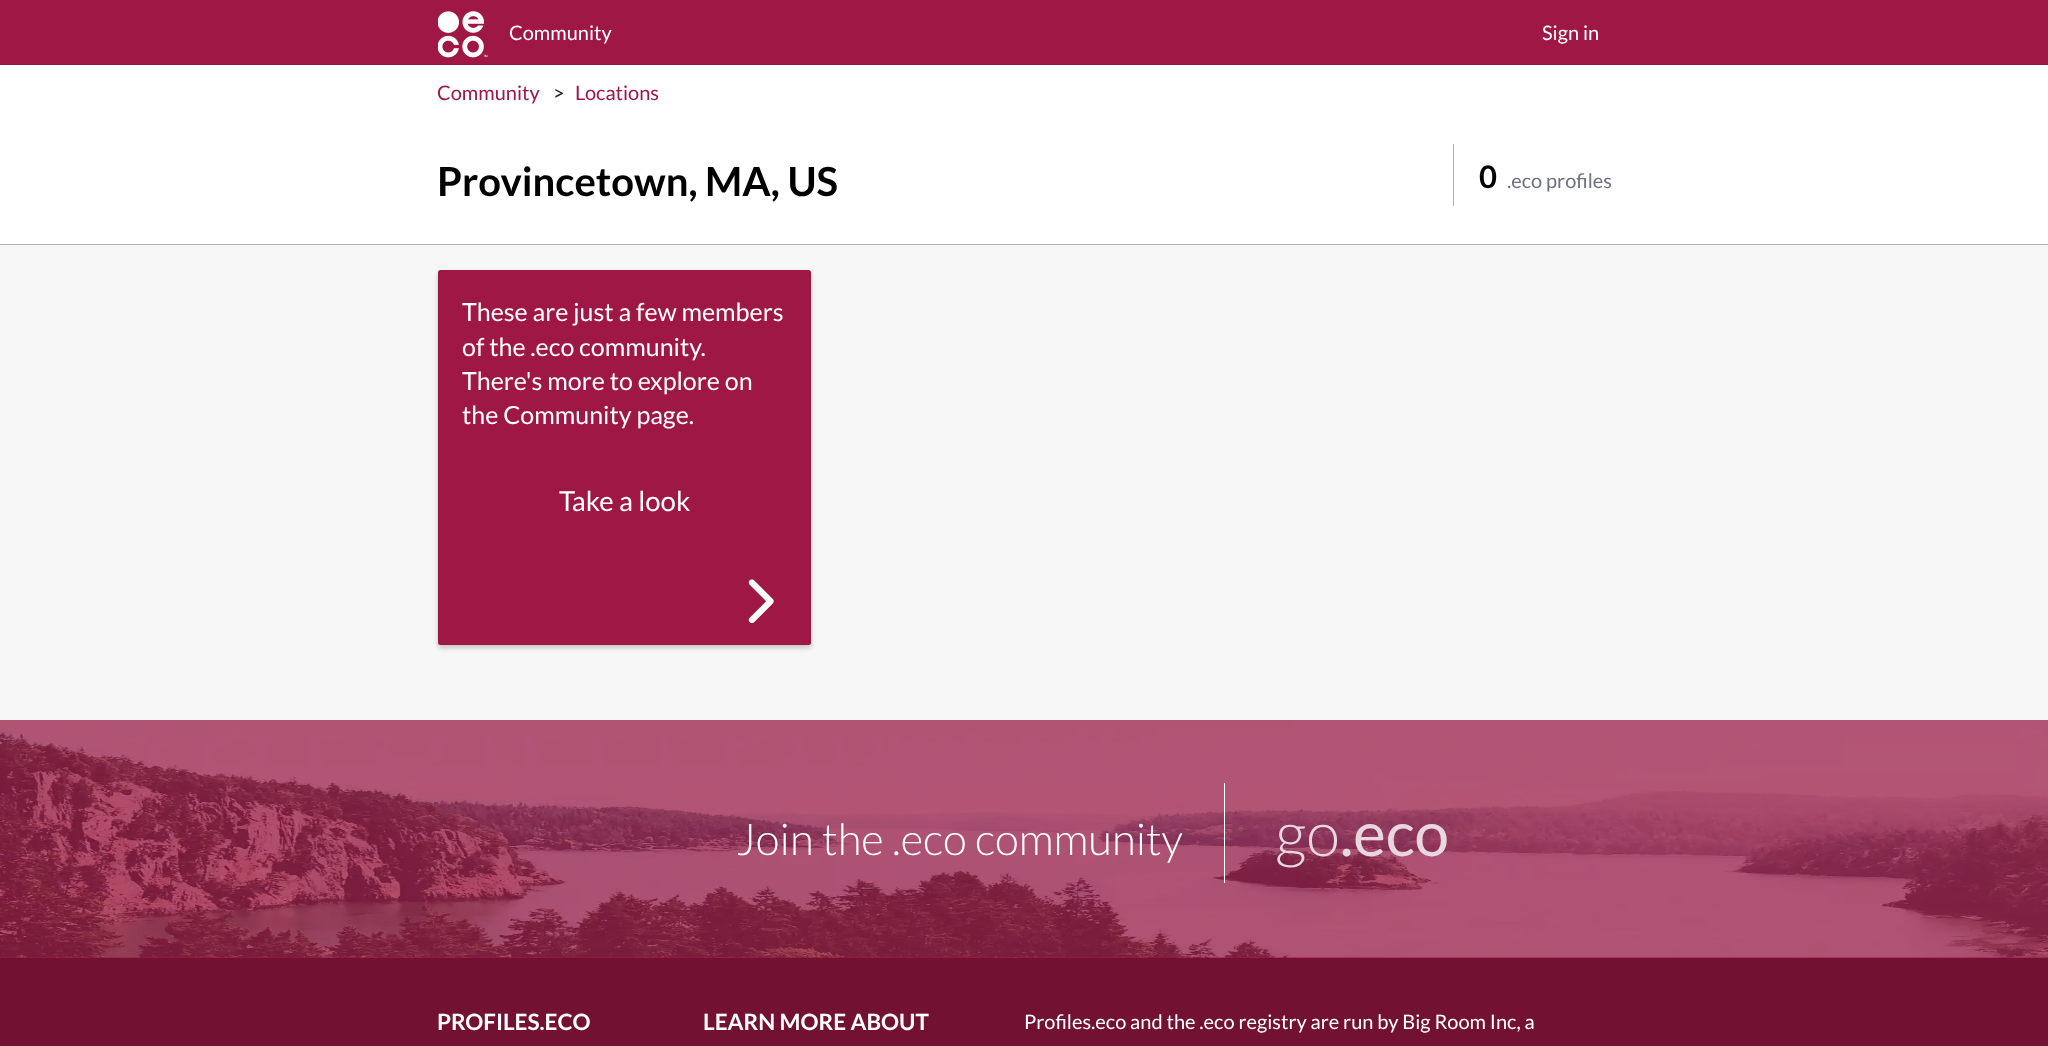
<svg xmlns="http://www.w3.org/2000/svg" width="2048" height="1046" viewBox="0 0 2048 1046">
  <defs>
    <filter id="blur1" x="-50%" y="-200%" width="200%" height="500%"><feGaussianBlur stdDeviation="2.5"/></filter>
  </defs>
  <rect width="100%" height="100%" fill="#f7f7f7"/>
  <rect x="0" y="0" width="2048" height="65" fill="#9f1744"/>
  <image x="438" y="11" width="50" height="47" href="img1.png"/>
  <text x="509" y="40" font-family="Lato" font-size="20" fill="#ffffff">Community</text>
  <text x="1542" y="40" font-family="Lato" font-size="20" fill="#ffffff">Sign in</text>
  <rect x="0" y="65" width="2048" height="179" fill="#ffffff"/>
  <text x="437" y="100" font-family="Lato" font-size="20" fill="#9f1744">Community</text>
  <text x="553" y="100" font-family="Lato" font-size="20" fill="#222222">&gt;</text>
  <text x="575" y="100" font-family="Lato" font-size="20" fill="#9f1744">Locations</text>
  <text x="437" y="196" font-family="Lato" font-size="40" font-weight="bold" fill="#000000">Provincetown, MA, US</text>
  <rect x="1453" y="144" width="1" height="62" fill="#b2b2b2"/>
  <text x="1479" y="188" font-family="Lato" font-size="31" font-weight="bold" fill="#000000">0</text>
  <text x="1507" y="188" font-family="Lato" font-size="20" fill="#6f7080">.eco profiles</text>
  <rect x="0" y="244" width="2048" height="1" fill="#b2b2b2"/>
  <rect x="438" y="273" width="373" height="375" rx="2.5" fill="#000000" fill-opacity="0.2" filter="url(#blur1)"/>
  <rect x="438" y="270" width="373" height="375" rx="2.5" fill="#9f1744"/>
  <text x="462" y="321" font-family="Lato" font-size="25" fill="#ffffff">These are just a few members</text>
  <text x="462" y="356" font-family="Lato" font-size="25" fill="#ffffff">of the .eco community.</text>
  <text x="462" y="390" font-family="Lato" font-size="25" fill="#ffffff">There's more to explore on</text>
  <text x="462" y="424" font-family="Lato" font-size="25" fill="#ffffff">the Community page.</text>
  <text x="559" y="511" font-family="Lato" font-size="27.5" fill="#ffffff">Take a look</text>
  <image x="748" y="579" width="26" height="45" href="img2.png"/>
  <rect x="0" y="957" width="2048" height="1" fill="#9f1744"/>
  <image x="0" y="720" width="2048" height="238" href="img3.png"/>
  <text x="736" y="855" font-family="Lato" font-size="43.75" font-weight="300" fill="#ffffff">Join the .eco community</text>
  <rect x="1224" y="783" width="1" height="100" fill="#ffffff"/>
  <text x="1275" y="856" font-family="Lato" font-size="62" font-weight="300" fill="#e8d7de">go</text>
  <text x="1340" y="856" font-family="Lato" font-size="62" fill="#e8d7de">.eco</text>
  <rect x="0" y="958" width="2048" height="88" fill="#721131"/>
  <text x="437" y="1030" font-family="Lato" font-size="22.5" font-weight="bold" fill="#ffffff">PROFILES.ECO</text>
  <text x="703" y="1030" font-family="Lato" font-size="22.5" font-weight="bold" fill="#ffffff">LEARN MORE ABOUT</text>
  <text x="1024" y="1029" font-family="Lato" font-size="20" fill="#ffffff">Profiles.eco and the .eco registry are run by Big Room Inc, a</text>
</svg>
